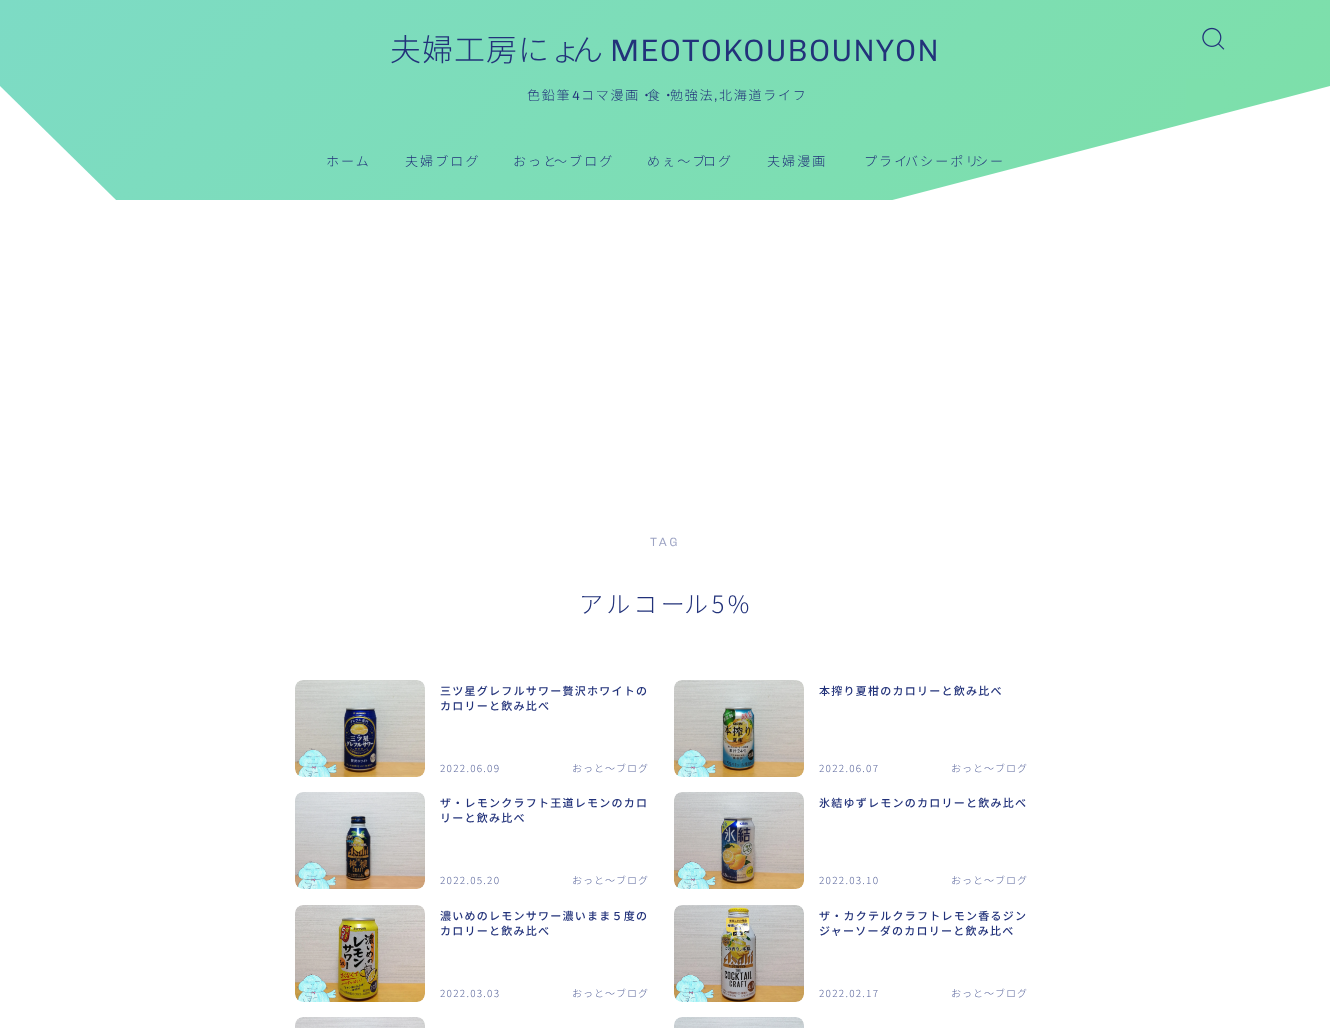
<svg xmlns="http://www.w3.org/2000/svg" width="1330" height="1028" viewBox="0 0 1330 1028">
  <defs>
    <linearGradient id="g1" gradientUnits="userSpaceOnUse" x1="242" y1="-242" x2="1088" y2="603"><stop offset="0" stop-color="#7ddbc5"/><stop offset="1" stop-color="#7de0a5"/></linearGradient>
    <clipPath id="clip1"><rect x="945" y="78" width="280" height="37" rx="8"/></clipPath>
  </defs>
  <rect width="100%" height="100%" fill="#ffffff"/>
  <path d="M0 0V86L279 360L1330 86V0Z" fill="url(#g1)"/>
  <text x="390" y="61" font-family="Noto Sans JP" font-size="31" font-weight="300" letter-spacing="1" fill="#22327a">夫婦工房にょ</text>
  <text x="572" y="61" font-family="Noto Sans JP" font-size="31" font-weight="300" letter-spacing="1" fill="#22327a">ん</text>
  <text x="610" y="61" font-family="Chivo" font-size="31" font-weight="300" letter-spacing="1" fill="#22327a">MEOTOKOUBOUNYON</text>
  <text x="527" y="100" font-family="Noto Sans JP" font-size="13" font-weight="300" letter-spacing="1.75" fill="#22327a">色鉛筆</text>
  <text x="572" y="100" font-family="Chivo" font-size="13" font-weight="300" letter-spacing="1.75" fill="#22327a">4</text>
  <text x="581" y="100" font-family="Noto Sans JP" font-size="13" font-weight="300" letter-spacing="1.75" fill="#22327a">コマ漫画・</text>
  <text x="647" y="100" font-family="Noto Sans JP" font-size="13" font-weight="300" letter-spacing="1.75" fill="#22327a">食・</text>
  <text x="670" y="100" font-family="Noto Sans JP" font-size="13" font-weight="300" letter-spacing="1.75" fill="#22327a">勉強法</text>
  <text x="714" y="100" font-family="Chivo" font-size="13" font-weight="300" letter-spacing="1.75" fill="#22327a">,</text>
  <text x="719" y="100" font-family="Noto Sans JP" font-size="13" font-weight="300" letter-spacing="1.75" fill="#22327a">北海道ライフ</text>
  <image x="1202" y="27" width="23" height="23" href="img1.png"/>
  <g clip-path="url(#clip1)">
    <path d="M1186 79H1225V107C1225 111.5 1221.5 115 1217 115H1186Z" fill="#7ddfac"/>
  </g>
  <text x="326" y="166" font-family="Noto Sans JP" font-size="13" font-weight="300" letter-spacing="2.1" fill="#22327a">ホーム</text>
  <text x="405" y="166" font-family="Noto Sans JP" font-size="13" font-weight="300" letter-spacing="2.1" fill="#22327a">夫婦ブログ</text>
  <text x="513" y="166" font-family="Noto Sans JP" font-size="13" font-weight="300" letter-spacing="2.1" fill="#22327a">おっと</text>
  <text x="554" y="166" font-family="Noto Sans JP" font-size="13" font-weight="300" letter-spacing="2.1" fill="#22327a">～ブログ</text>
  <text x="647" y="166" font-family="Noto Sans JP" font-size="13" font-weight="300" letter-spacing="2.1" fill="#22327a">めぇ～ブ</text>
  <text x="703" y="166" font-family="Noto Sans JP" font-size="13" font-weight="300" letter-spacing="2.1" fill="#22327a">ログ</text>
  <text x="767" y="166" font-family="Noto Sans JP" font-size="13" font-weight="300" letter-spacing="2.1" fill="#22327a">夫婦漫画</text>
  <text x="864" y="166" font-family="Noto Sans JP" font-size="13" font-weight="300" letter-spacing="2.1" fill="#22327a">プライ</text>
  <text x="905" y="166" font-family="Noto Sans JP" font-size="13" font-weight="300" letter-spacing="2.1" fill="#22327a">バシーポリ</text>
  <text x="975" y="166" font-family="Noto Sans JP" font-size="13" font-weight="300" letter-spacing="2.1" fill="#22327a">シー</text>
  <rect x="116" y="200" width="777" height="160" fill="#ffffff"/>
  <text x="650" y="546" font-family="Chivo" font-size="12" font-weight="300" letter-spacing="2.5" fill="#9ca3c3">TAG</text>
  <text x="579" y="613" font-family="Noto Sans JP" font-size="24" font-weight="300" letter-spacing="3.5" fill="#22327a">アルコー</text>
  <text x="684" y="613" font-family="Noto Sans JP" font-size="24" font-weight="300" letter-spacing="3.5" fill="#22327a">ル5%</text>
  <image x="295" y="680" width="130" height="97" href="img2.png"/>
  <text x="440" y="695" font-family="Noto Sans JP" font-size="11" font-weight="500" letter-spacing="1.25" fill="#22327a">三ツ星グレフルサワー贅沢ホワイトの</text>
  <text x="440" y="710" font-family="Noto Sans JP" font-size="11" font-weight="500" letter-spacing="1.25" fill="#22327a">カロリーと飲み比べ</text>
  <text x="440" y="772" font-family="Noto Sans JP" font-size="10" font-weight="300" letter-spacing="1.25" fill="#59659b">2022.06.09</text>
  <text x="572" y="772" font-family="Noto Sans JP" font-size="10" font-weight="300" letter-spacing="1" fill="#59659b">おっと～ブログ</text>
  <image x="674" y="680" width="130" height="97" href="img3.png"/>
  <text x="819" y="695" font-family="Noto Sans JP" font-size="11" font-weight="500" letter-spacing="1.25" fill="#22327a">本搾り夏柑のカロリーと飲み比べ</text>
  <text x="819" y="772" font-family="Noto Sans JP" font-size="10" font-weight="300" letter-spacing="1.25" fill="#59659b">2022.06.07</text>
  <text x="951" y="772" font-family="Noto Sans JP" font-size="10" font-weight="300" letter-spacing="1" fill="#59659b">おっと～ブログ</text>
  <image x="295" y="792" width="130" height="97" href="img4.png"/>
  <text x="440" y="807" font-family="Noto Sans JP" font-size="11" font-weight="500" letter-spacing="1.25" fill="#22327a">ザ・レモンクラフト王道レモンのカロ</text>
  <text x="440" y="822" font-family="Noto Sans JP" font-size="11" font-weight="500" letter-spacing="1.25" fill="#22327a">リーと飲み比べ</text>
  <text x="440" y="884" font-family="Noto Sans JP" font-size="10" font-weight="300" letter-spacing="1.25" fill="#59659b">2022.05.20</text>
  <text x="572" y="884" font-family="Noto Sans JP" font-size="10" font-weight="300" letter-spacing="1" fill="#59659b">おっと～ブログ</text>
  <image x="674" y="792" width="130" height="97" href="img5.png"/>
  <text x="819" y="807" font-family="Noto Sans JP" font-size="11" font-weight="500" letter-spacing="1.25" fill="#22327a">氷結ゆずレモンのカロリーと飲み比べ</text>
  <text x="819" y="884" font-family="Noto Sans JP" font-size="10" font-weight="300" letter-spacing="1.25" fill="#59659b">2022.03.10</text>
  <text x="951" y="884" font-family="Noto Sans JP" font-size="10" font-weight="300" letter-spacing="1" fill="#59659b">おっと～ブログ</text>
  <image x="295" y="905" width="130" height="97" href="img6.png"/>
  <text x="440" y="920" font-family="Noto Sans JP" font-size="11" font-weight="500" letter-spacing="1.25" fill="#22327a">濃いめのレモンサワー濃いまま５度の</text>
  <text x="440" y="935" font-family="Noto Sans JP" font-size="11" font-weight="500" letter-spacing="1.25" fill="#22327a">カロリーと飲み比べ</text>
  <text x="440" y="997" font-family="Noto Sans JP" font-size="10" font-weight="300" letter-spacing="1.25" fill="#59659b">2022.03.03</text>
  <text x="572" y="997" font-family="Noto Sans JP" font-size="10" font-weight="300" letter-spacing="1" fill="#59659b">おっと～ブログ</text>
  <image x="674" y="905" width="130" height="97" href="img7.png"/>
  <text x="819" y="920" font-family="Noto Sans JP" font-size="11" font-weight="500" letter-spacing="1.25" fill="#22327a">ザ・カクテルクラフトレモン香るジン</text>
  <text x="819" y="935" font-family="Noto Sans JP" font-size="11" font-weight="500" letter-spacing="1.25" fill="#22327a">ジャーソーダのカロリーと飲み比べ</text>
  <text x="819" y="997" font-family="Noto Sans JP" font-size="10" font-weight="300" letter-spacing="1.25" fill="#59659b">2022.02.17</text>
  <text x="951" y="997" font-family="Noto Sans JP" font-size="10" font-weight="300" letter-spacing="1" fill="#59659b">おっと～ブログ</text>
  <image x="295" y="1017" width="130" height="11" href="img8.png"/>
  <image x="674" y="1017" width="130" height="11" href="img9.png"/>
</svg>
